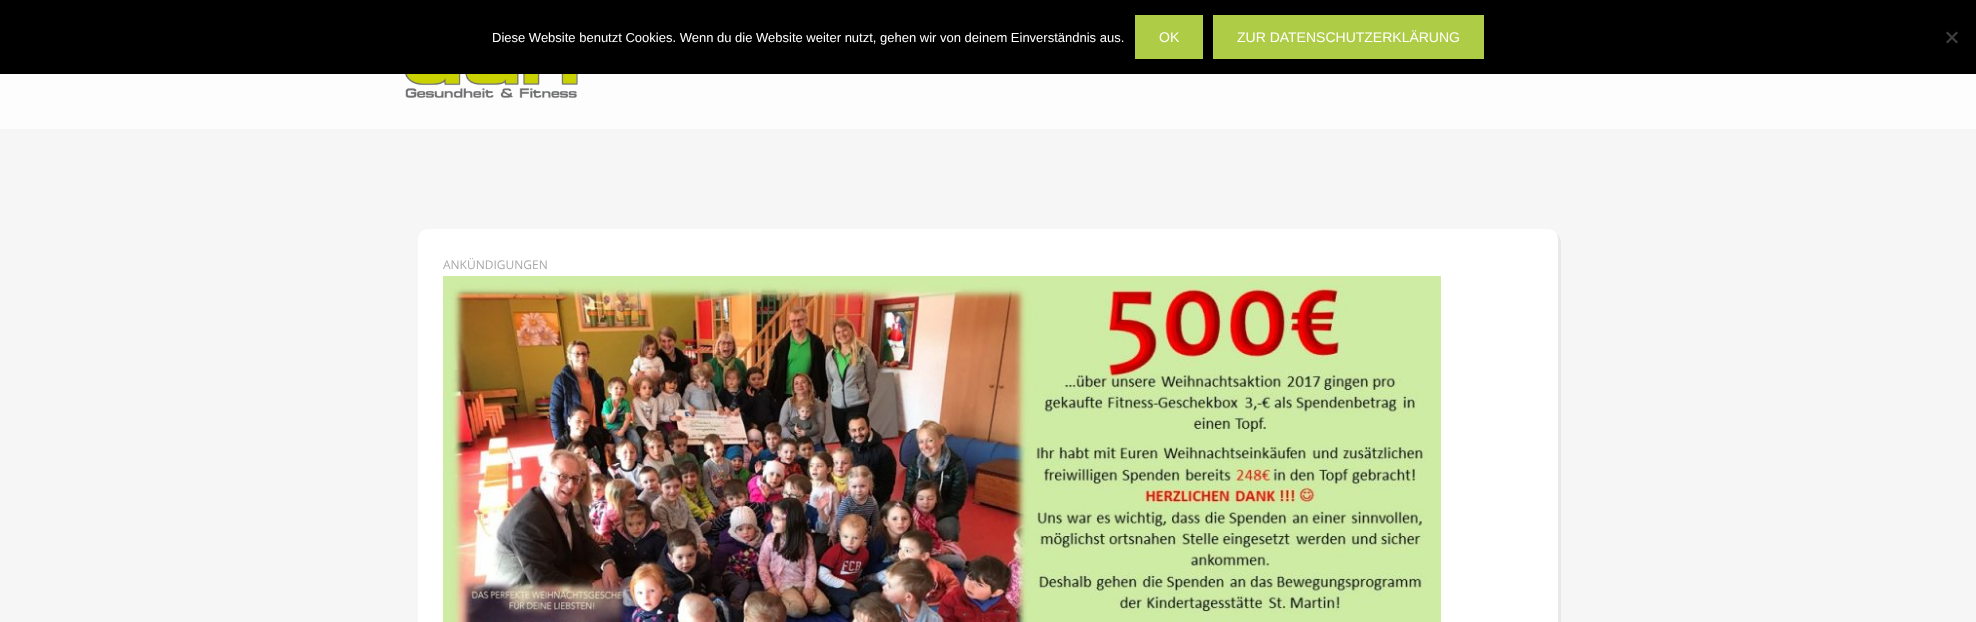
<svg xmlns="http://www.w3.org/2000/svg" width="1976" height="622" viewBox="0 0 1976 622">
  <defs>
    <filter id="blur1" x="-50%" y="-200%" width="200%" height="500%"><feGaussianBlur stdDeviation="0.5"/></filter>
  </defs>
  <rect width="100%" height="100%" fill="#f6f6f6"/>
  <rect x="0" y="0" width="1976" height="74" fill="#000000"/>
  <text x="492" y="42" font-family="Liberation Sans" font-size="13" fill="#ffffff">Diese Website benutzt Cookies. Wenn du die Website weiter nutzt, gehen wir von deinem Einverständnis aus.</text>
  <rect x="1135" y="15" width="68" height="44" fill="#afcc47"/>
  <text x="1159" y="42" font-family="Liberation Sans" font-size="14" fill="#ffffff">OK</text>
  <rect x="1213" y="15" width="271" height="44" fill="#afcc47"/>
  <text x="1237" y="42" font-family="Liberation Sans" font-size="14" fill="#ffffff">ZUR DATENSCHUTZERKLÄRUNG</text>
  <path d="M1956.5 31.5L1958 33L1947.5 43.5L1946 42Z" fill="#404040"/>
  <path d="M1946 33L1947.5 31.5L1958 42L1956.5 43.5Z" fill="#404040"/>
  <rect x="0" y="74" width="1976" height="55" fill="#fdfdfd"/>
  <image x="404" y="74" width="174" height="24" href="img1.png"/>
  <rect x="421" y="232" width="1140" height="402" rx="10" fill="#000000" fill-opacity="0.05" filter="url(#blur1)"/>
  <rect x="418" y="229" width="1140" height="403" rx="10" fill="#ffffff"/>
  <text x="443" y="269" font-family="Open Sans" font-size="12" fill="#a8a8a8">ANKÜNDIGUNGEN</text>
  <image x="443" y="276" width="998" height="346" href="img2.png"/>
</svg>
